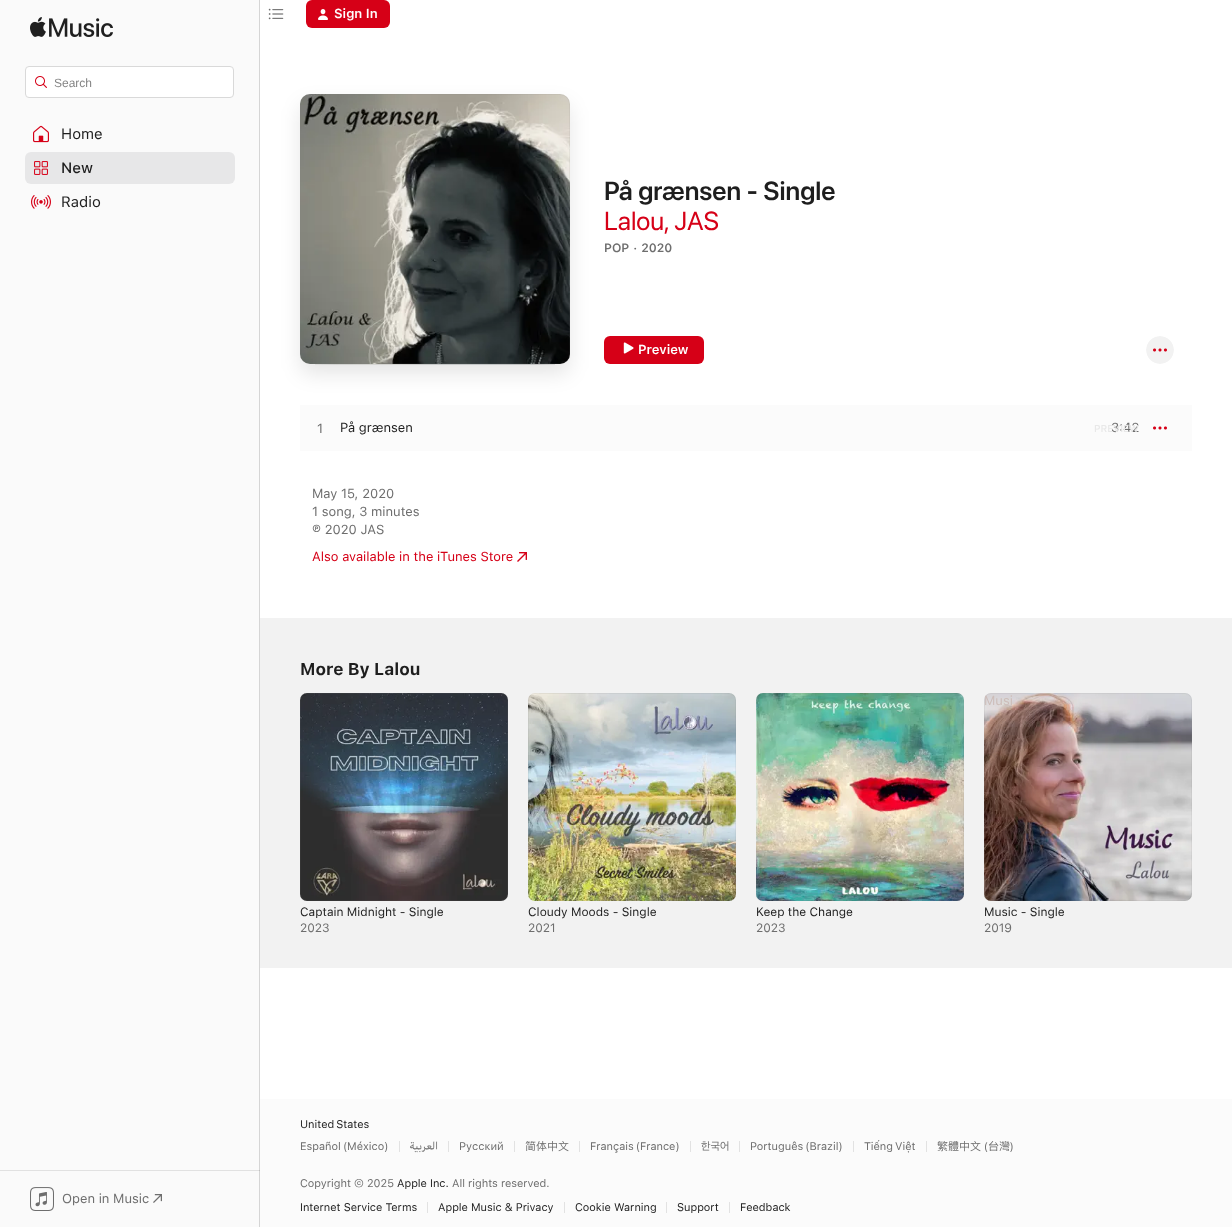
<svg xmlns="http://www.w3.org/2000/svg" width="1232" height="1227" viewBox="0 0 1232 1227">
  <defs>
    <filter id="blur1" x="-50%" y="-200%" width="200%" height="500%"><feGaussianBlur stdDeviation="10"/></filter>
  </defs>
  <rect width="100%" height="100%" fill="#ffffff"/>
  <image x="268" y="8" width="16" height="12" href="img1.png"/>
  <rect x="306" y="0" width="84" height="28" rx="6" fill="#d60017"/>
  <image x="318" y="9" width="10" height="11" href="img2.png"/>
  <text x="334" y="18" font-family="SF" font-size="13" font-weight="600" fill="#ffffff">Sign In</text>
  <rect x="0" y="0" width="259" height="1227" fill="#fafafa"/>
  <rect x="0" y="1170" width="260" height="1" fill="#e1e1e1"/>
  <rect x="259" y="0" width="1" height="1227" fill="#d5d5d5"/>
  <rect x="259" y="1170" width="1" height="1" fill="#c0c0c0"/>
  <image x="30" y="17" width="83" height="20" href="img3.png"/>
  <rect x="25.5" y="66.5" width="208" height="31" rx="3.5" fill="#ffffff" stroke="#d9d9d9"/>
  <image x="35" y="76" width="12" height="12" href="img4.png"/>
  <text x="54" y="87" font-family="Liberation Sans" font-size="12" fill="#858585">Search</text>
  <image x="33" y="125" width="16" height="18" href="img5.png"/>
  <text x="61" y="139" font-family="SF" font-size="15" fill="#1e1e1e">Home</text>
  <rect x="25" y="152" width="210" height="32" rx="6" fill="#e7e7e8"/>
  <image x="34" y="161" width="14" height="14" href="img6.png"/>
  <text x="61" y="173" font-family="SF" font-size="15" font-weight="500" fill="#1e1e1e">New</text>
  <image x="31" y="195" width="20" height="14" href="img7.png"/>
  <text x="61" y="207" font-family="SF" font-size="15" fill="#1e1e1e">Radio</text>
  <image x="30" y="1187" width="24" height="24" href="img8.png"/>
  <text x="62" y="1203" font-family="SF" font-size="13" fill="#6e6e6e">Open in Music</text>
  <image x="153" y="1194" width="9" height="9" href="img9.png"/>
  <rect x="300" y="104" width="270" height="270" rx="10" fill="#000000" fill-opacity="0.1" filter="url(#blur1)"/>
  <image x="300" y="94" width="270" height="270" href="img10.png"/>
  <rect x="300.5" y="94.5" width="269" height="269" rx="9.5" fill="none" stroke="#808080" stroke-opacity="0.1"/>
  <image x="315" y="364" width="240" height="1" href="img11.png"/>
  <text x="604" y="200" font-family="'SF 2'" font-size="26" font-weight="600" fill="#1e1e1e">På grænsen - Single</text>
  <text x="604" y="230" font-family="'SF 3'" font-size="26" fill="#d60017">Lalou, JAS</text>
  <text x="604" y="252" font-family="SF" font-size="12" font-weight="600" fill="#6e6e6e">POP · 2020</text>
  <rect x="604" y="336" width="100" height="28" rx="6" fill="#d60017"/>
  <image x="623" y="342" width="11" height="12" href="img12.png"/>
  <text x="638" y="354" font-family="SF" font-size="13" font-weight="600" fill="#ffffff">Preview</text>
  <image x="1146" y="336" width="28" height="28" href="img13.png"/>
  <rect x="300" y="405" width="892" height="46" fill="#fbfbfb"/>
  <text x="317" y="433" font-family="SF" font-size="13" fill="#6e6e6e">1</text>
  <text x="340" y="432" font-family="SF" font-size="13" fill="#1e1e1e">På grænsen</text>
  <text x="1111" y="432" font-family="SF" font-size="13" fill="#6e6e6e">3:42</text>
  <text x="1094" y="432" font-family="SF" font-size="10" font-weight="500" fill="#e8e8e8">PREVIEW</text>
  <image x="1153" y="426" width="14" height="4" href="img14.png"/>
  <text x="312" y="498" font-family="SF" font-size="13" fill="#6e6e6e">May 15, 2020</text>
  <text x="312" y="516" font-family="SF" font-size="13" fill="#6e6e6e">1 song, 3 minutes</text>
  <text x="312" y="534" font-family="SF" font-size="13" fill="#6e6e6e">℗ 2020 JAS</text>
  <text x="312" y="561" font-family="SF" font-size="13" fill="#d60017">Also available in the iTunes Store</text>
  <image x="517" y="552" width="10" height="10" href="img15.png"/>
  <rect x="260" y="618" width="972" height="350" fill="#f2f2f2"/>
  <text x="300" y="675" font-family="SF" font-size="17" font-weight="bold" fill="#1e1e1e">More By Lalou</text>
  <image x="300" y="693" width="208" height="208" href="img16.png"/>
  <rect x="300.5" y="693.5" width="207" height="207" rx="6.5" fill="none" stroke="#808080" stroke-opacity="0.1"/>
  <text x="300" y="916" font-family="SF" font-size="12" fill="#1e1e1e">Captain Midnight - Single</text>
  <text x="300" y="932" font-family="SF" font-size="12" fill="#6e6e6e">2023</text>
  <image x="528" y="693" width="208" height="208" href="img17.png"/>
  <rect x="528.5" y="693.5" width="207" height="207" rx="6.5" fill="none" stroke="#808080" stroke-opacity="0.1"/>
  <text x="528" y="916" font-family="SF" font-size="12" fill="#1e1e1e">Cloudy Moods - Single</text>
  <text x="528" y="932" font-family="SF" font-size="12" fill="#6e6e6e">2021</text>
  <image x="756" y="693" width="208" height="208" href="img18.png"/>
  <rect x="756.5" y="693.5" width="207" height="207" rx="6.5" fill="none" stroke="#808080" stroke-opacity="0.1"/>
  <text x="756" y="916" font-family="SF" font-size="12" fill="#1e1e1e">Keep the Change</text>
  <text x="756" y="932" font-family="SF" font-size="12" fill="#6e6e6e">2023</text>
  <image x="984" y="693" width="208" height="208" href="img19.png"/>
  <rect x="984.5" y="693.5" width="207" height="207" rx="6.5" fill="none" stroke="#808080" stroke-opacity="0.1"/>
  <text x="984" y="705" font-family="SF" font-size="13" fill="#cdbdb9">Musi</text>
  <text x="984" y="916" font-family="SF" font-size="12" fill="#1e1e1e">Music - Single</text>
  <text x="984" y="932" font-family="SF" font-size="12" fill="#6e6e6e">2019</text>
  <rect x="260" y="1099" width="972" height="128" fill="#fbfbfb"/>
  <text x="300" y="1128" word-spacing="-1" font-family="SF" font-size="11" fill="#1e1e1e">United States</text>
  <text x="300" y="1150" word-spacing="-1" font-family="SF" font-size="11" fill="#6e6e6e">Español (México)</text>
  <rect x="399" y="1141" width="1" height="11" fill="#e2e2e2"/>
  <text x="438" y="1150" font-family="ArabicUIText" font-size="11" direction="rtl" fill="#6e6e6e">العربية</text>
  <rect x="448" y="1141" width="1" height="11" fill="#e2e2e2"/>
  <text x="459" y="1150" font-family="SF" font-size="11" fill="#6e6e6e">Русский</text>
  <rect x="514" y="1141" width="1" height="11" fill="#e2e2e2"/>
  <text x="525" y="1150" font-family="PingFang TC" font-size="11" fill="#6e6e6e">简体中文</text>
  <rect x="579" y="1141" width="1" height="11" fill="#e2e2e2"/>
  <text x="590" y="1150" word-spacing="-1" font-family="SF" font-size="11" fill="#6e6e6e">Français (France)</text>
  <rect x="690" y="1141" width="1" height="11" fill="#e2e2e2"/>
  <text x="701" y="1150" font-family="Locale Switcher" font-size="11" fill="#6e6e6e">한국어</text>
  <rect x="739" y="1141" width="1" height="11" fill="#e2e2e2"/>
  <text x="750" y="1150" word-spacing="-1" font-family="SF" font-size="11" fill="#6e6e6e">Português (Brazil)</text>
  <rect x="853" y="1141" width="1" height="11" fill="#e2e2e2"/>
  <text x="864" y="1150" word-spacing="-1" font-family="SF" font-size="11" fill="#6e6e6e">Tiếng Việt</text>
  <rect x="926" y="1141" width="1" height="11" fill="#e2e2e2"/>
  <text x="937" y="1150" font-family="PingFang TC" font-size="11" fill="#6e6e6e">繁體中文</text>
  <text x="984" y="1150" font-family="'SF 2'" font-size="11" fill="#6e6e6e">(</text>
  <text x="988" y="1150" font-family="PingFang TC" font-size="11" fill="#6e6e6e">台灣</text>
  <text x="1010" y="1150" font-family="'SF 2'" font-size="11" fill="#6e6e6e">)</text>
  <text x="300" y="1187" font-family="SF" font-size="11" fill="#6e6e6e">Copyright © 2025</text>
  <text x="397" y="1187" font-family="SF" font-size="11" fill="#1e1e1e">Apple Inc.</text>
  <text x="452" y="1187" font-family="SF" font-size="11" fill="#6e6e6e">All rights reserved.</text>
  <text x="300" y="1211" font-family="SF" font-size="11" fill="#1e1e1e">Internet Service Terms</text>
  <rect x="427" y="1202" width="1" height="11" fill="#e2e2e2"/>
  <text x="438" y="1211" font-family="SF" font-size="11" fill="#1e1e1e">Apple Music &amp; Privacy</text>
  <rect x="564" y="1202" width="1" height="11" fill="#e2e2e2"/>
  <text x="575" y="1211" font-family="SF" font-size="11" fill="#1e1e1e">Cookie Warning</text>
  <rect x="666" y="1202" width="1" height="11" fill="#e2e2e2"/>
  <text x="677" y="1211" font-family="SF" font-size="11" fill="#1e1e1e">Support</text>
  <rect x="729" y="1202" width="1" height="11" fill="#e2e2e2"/>
  <text x="740" y="1211" font-family="SF" font-size="11" fill="#1e1e1e">Feedback</text>
</svg>
